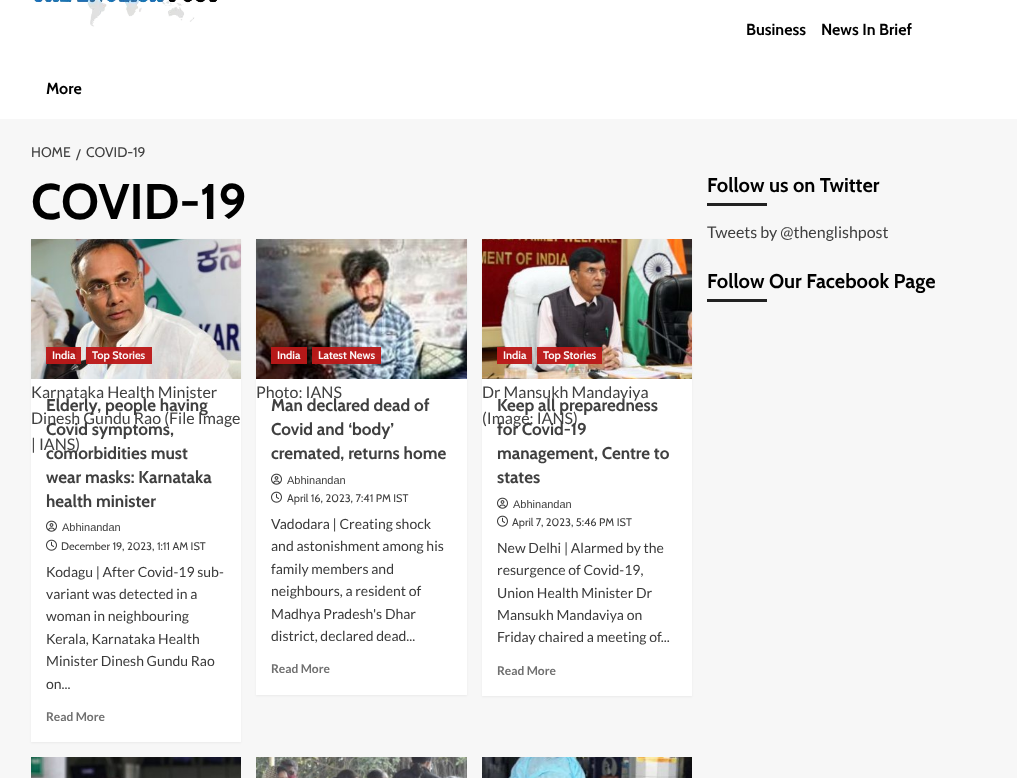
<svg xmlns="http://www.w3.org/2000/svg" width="1017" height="778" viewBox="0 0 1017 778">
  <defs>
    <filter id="blur1" x="-50%" y="-200%" width="200%" height="500%"><feGaussianBlur stdDeviation="1"/></filter>
  </defs>
  <rect width="100%" height="100%" fill="#f7f7f7"/>
  <rect x="0" y="0" width="1017" height="119" fill="#ffffff"/>
  <image x="34" y="0" width="183" height="27" href="img1.png"/>
  <text x="746" y="35" font-family="Cabin" font-size="16" font-weight="bold" fill="#000000">Business</text>
  <text x="821" y="35" font-family="Cabin" font-size="16" font-weight="bold" fill="#000000">News In Brief</text>
  <text x="46" y="94" font-family="Cabin" font-size="16" font-weight="bold" fill="#000000">More</text>
  <text x="31" y="157" font-family="Cabin" font-size="14" fill="#404040">HOME</text>
  <text x="76" y="159" font-family="Cabin" font-size="14" fill="#404040">/</text>
  <text x="86" y="157" font-family="Cabin" font-size="14" fill="#404040">COVID-19</text>
  <text x="31" y="219" font-family="Cabin" font-size="50" font-weight="bold" fill="#000000">COVID-19</text>
  <rect x="31" y="240" width="210" height="503" fill="#000000" fill-opacity="0.05" filter="url(#blur1)"/>
  <rect x="31" y="379" width="210" height="363" fill="#ffffff"/>
  <image x="31" y="239" width="210" height="140" href="img2.png"/>
  <rect x="46" y="347" width="35" height="17" fill="#bb1919" fill-opacity="0.96"/>
  <text x="52" y="359" font-family="Cabin" font-size="11" font-weight="bold" fill="#fcf6f6">India</text>
  <rect x="86" y="347" width="66" height="17" fill="#bb1919" fill-opacity="0.96"/>
  <text x="92" y="359" font-family="Cabin" font-size="11" font-weight="bold" fill="#fcf6f6">Top Stories</text>
  <text x="31" y="398" font-family="Lato" font-size="16" fill="#404040">Karnataka Health Minister</text>
  <text x="31" y="424" font-family="Lato" font-size="16" fill="#404040">Dinesh Gundu Rao (File Image</text>
  <text x="46" y="459" font-family="Cabin" font-size="17" font-weight="bold" fill="#404040">comorbidities must</text>
  <text x="31" y="450" font-family="Lato" font-size="16" fill="#404040">| IANS)</text>
  <text x="46" y="411" font-family="Cabin" font-size="17" font-weight="bold" fill="#404040">Elderly, people having</text>
  <text x="46" y="435" font-family="Cabin" font-size="17" font-weight="bold" fill="#404040">Covid symptoms,</text>
  <text x="46" y="483" font-family="Cabin" font-size="17" font-weight="bold" fill="#404040">wear masks: Karnataka</text>
  <text x="46" y="507" font-family="Cabin" font-size="17" font-weight="bold" fill="#404040">health minister</text>
  <image x="46" y="520" width="11" height="12" href="img3.png"/>
  <text x="62" y="531" font-family="Liberation Sans" font-size="11" fill="#404040">Abhinandan</text>
  <image x="46" y="539" width="11" height="12" href="img4.png"/>
  <text x="61" y="550" font-family="Cabin" font-size="11" fill="#404040">December 19, 2023, 1:11 AM IST</text>
  <text x="46" y="577" font-family="Lato" font-size="14" fill="#3a3a3a">Kodagu | After Covid-19 sub-</text>
  <text x="46" y="599" font-family="Lato" font-size="14" fill="#3a3a3a">variant was detected in a</text>
  <text x="46" y="621" font-family="Lato" font-size="14" fill="#3a3a3a">woman in neighbouring</text>
  <text x="46" y="644" font-family="Lato" font-size="14" fill="#3a3a3a">Kerala, Karnataka Health</text>
  <text x="46" y="666" font-family="Lato" font-size="14" fill="#3a3a3a">Minister Dinesh Gundu Rao</text>
  <text x="46" y="689" font-family="Lato" font-size="14" fill="#3a3a3a">on...</text>
  <text x="46" y="721" font-family="Lato" font-size="12" font-weight="bold" fill="#707070">Read More</text>
  <rect x="256" y="240" width="211" height="456" fill="#000000" fill-opacity="0.05" filter="url(#blur1)"/>
  <rect x="256" y="379" width="211" height="316" fill="#ffffff"/>
  <image x="256" y="239" width="211" height="140" href="img5.png"/>
  <rect x="271" y="347" width="36" height="17" fill="#bb1919" fill-opacity="0.96"/>
  <text x="277" y="359" font-family="Cabin" font-size="11" font-weight="bold" fill="#fcf6f6">India</text>
  <rect x="312" y="347" width="69" height="17" fill="#bb1919" fill-opacity="0.96"/>
  <text x="318" y="359" font-family="Cabin" font-size="11" font-weight="bold" fill="#fcf6f6">Latest News</text>
  <text x="256" y="398" font-family="Lato" font-size="16" fill="#404040">Photo: IANS</text>
  <text x="271" y="411" font-family="Cabin" font-size="17" font-weight="bold" fill="#404040">Man declared dead of</text>
  <text x="271" y="435" font-family="Cabin" font-size="17" font-weight="bold" fill="#404040">Covid and ‘body’</text>
  <text x="271" y="459" font-family="Cabin" font-size="17" font-weight="bold" fill="#404040">cremated, returns home</text>
  <image x="271" y="473" width="11" height="12" href="img3.png"/>
  <text x="287" y="484" font-family="Liberation Sans" font-size="11" fill="#404040">Abhinandan</text>
  <image x="271" y="491" width="11" height="12" href="img4.png"/>
  <text x="287" y="502" font-family="Cabin" font-size="11" fill="#404040">April 16, 2023, 7:41 PM IST</text>
  <text x="271" y="529" font-family="Lato" font-size="14" fill="#3a3a3a">Vadodara | Creating shock</text>
  <text x="271" y="551" font-family="Lato" font-size="14" fill="#3a3a3a">and astonishment among his</text>
  <text x="271" y="574" font-family="Lato" font-size="14" fill="#3a3a3a">family members and</text>
  <text x="271" y="596" font-family="Lato" font-size="14" fill="#3a3a3a">neighbours, a resident of</text>
  <text x="271" y="619" font-family="Lato" font-size="14" fill="#3a3a3a">Madhya Pradesh's Dhar</text>
  <text x="271" y="641" font-family="Lato" font-size="14" fill="#3a3a3a">district, declared dead...</text>
  <text x="271" y="673" font-family="Lato" font-size="12" font-weight="bold" fill="#707070">Read More</text>
  <rect x="482" y="240" width="210" height="457" fill="#000000" fill-opacity="0.05" filter="url(#blur1)"/>
  <rect x="482" y="379" width="210" height="317" fill="#ffffff"/>
  <image x="482" y="239" width="210" height="140" href="img6.png"/>
  <rect x="497" y="347" width="35" height="17" fill="#bb1919" fill-opacity="0.96"/>
  <text x="503" y="359" font-family="Cabin" font-size="11" font-weight="bold" fill="#fcf6f6">India</text>
  <rect x="537" y="347" width="65" height="17" fill="#bb1919" fill-opacity="0.96"/>
  <text x="543" y="359" font-family="Cabin" font-size="11" font-weight="bold" fill="#fcf6f6">Top Stories</text>
  <text x="482" y="398" font-family="Lato" font-size="16" fill="#404040">Dr Mansukh Mandaviya</text>
  <text x="482" y="424" font-family="Lato" font-size="16" fill="#404040">(Image: IANS)</text>
  <text x="497" y="411" font-family="Cabin" font-size="17" font-weight="bold" fill="#404040">Keep all preparedness</text>
  <text x="497" y="435" font-family="Cabin" font-size="17" font-weight="bold" fill="#404040">for Covid-19</text>
  <text x="497" y="459" font-family="Cabin" font-size="17" font-weight="bold" fill="#404040">management, Centre to</text>
  <text x="497" y="483" font-family="Cabin" font-size="17" font-weight="bold" fill="#404040">states</text>
  <image x="497" y="497" width="11" height="12" href="img3.png"/>
  <text x="513" y="508" font-family="Liberation Sans" font-size="11" fill="#404040">Abhinandan</text>
  <image x="497" y="515" width="11" height="12" href="img4.png"/>
  <text x="512" y="526" font-family="Cabin" font-size="11" fill="#404040">April 7, 2023, 5:46 PM IST</text>
  <text x="497" y="553" font-family="Lato" font-size="14" fill="#3a3a3a">New Delhi | Alarmed by the</text>
  <text x="497" y="575" font-family="Lato" font-size="14" fill="#3a3a3a">resurgence of Covid-19,</text>
  <text x="497" y="598" font-family="Lato" font-size="14" fill="#3a3a3a">Union Health Minister Dr</text>
  <text x="497" y="620" font-family="Lato" font-size="14" fill="#3a3a3a">Mansukh Mandaviya on</text>
  <text x="497" y="642" font-family="Lato" font-size="14" fill="#3a3a3a">Friday chaired a meeting of...</text>
  <text x="497" y="675" font-family="Lato" font-size="12" font-weight="bold" fill="#707070">Read More</text>
  <image x="31" y="757" width="210" height="21" href="img7.png"/>
  <image x="256" y="757" width="211" height="21" href="img8.png"/>
  <image x="482" y="757" width="210" height="21" href="img9.png"/>
  <text x="707" y="192" font-family="Cabin" font-size="20" font-weight="bold" fill="#000000">Follow us on Twitter</text>
  <rect x="707" y="203" width="60" height="3" fill="#222222"/>
  <text x="707" y="238" font-family="Lato" font-size="16" fill="#404040">Tweets by @thenglishpost</text>
  <text x="707" y="288" font-family="Cabin" font-size="20" font-weight="bold" fill="#000000">Follow Our Facebook Page</text>
  <rect x="707" y="299" width="60" height="3" fill="#222222"/>
</svg>
